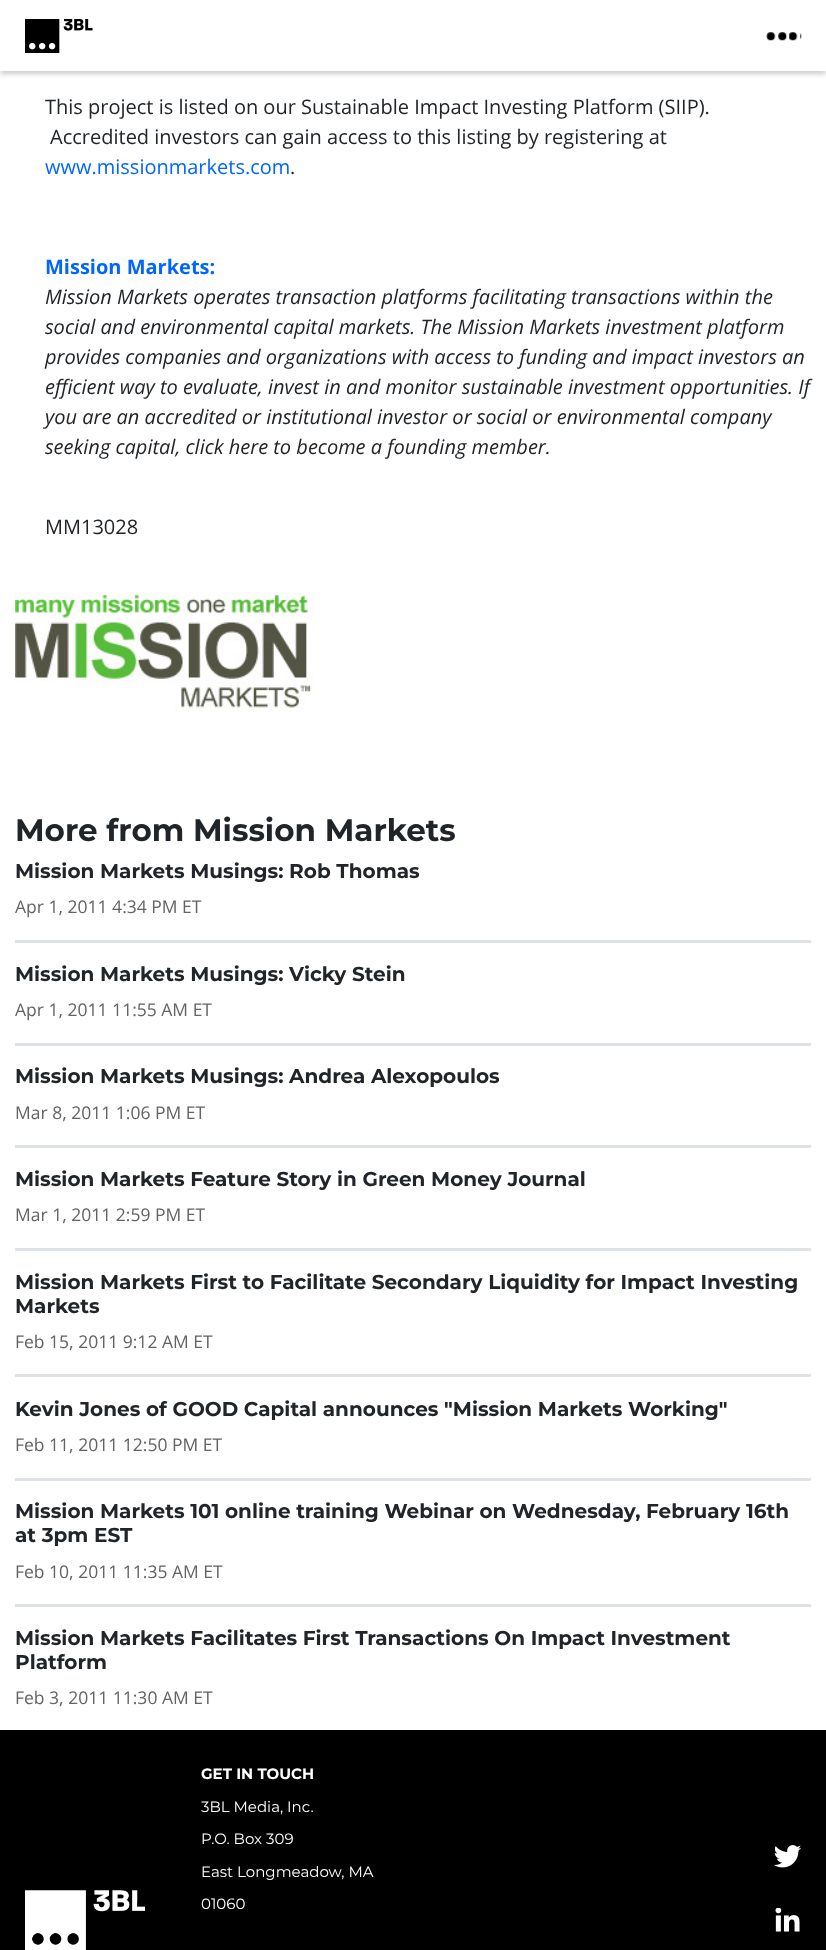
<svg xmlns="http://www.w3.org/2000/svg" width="826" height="1950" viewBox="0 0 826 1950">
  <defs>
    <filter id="blur1" x="-50%" y="-200%" width="200%" height="500%"><feGaussianBlur stdDeviation="2.5"/></filter>
  </defs>
  <rect width="100%" height="100%" fill="#ffffff"/>
  <rect x="0" y="3" width="826" height="71" fill="#000000" fill-opacity="0.2" filter="url(#blur1)"/>
  <rect x="0" y="0" width="826" height="71" fill="#ffffff"/>
  <image x="25" y="19" width="68" height="34" href="img1.png"/>
  <image x="766" y="32" width="36" height="9" href="img2.png"/>
  <text x="45" y="114" font-family="Open Sans" font-size="20" fill="#212529">This project is listed on our Sustainable Impact Investing Platform (SIIP).</text>
  <text x="50" y="144" font-family="Open Sans" font-size="20" fill="#212529">Accredited investors can gain access to this listing by registering at</text>
  <text x="45" y="174" font-family="Open Sans" font-size="20" fill="#0066ff">www.missionmarkets.com</text>
  <text x="290" y="174" font-family="Open Sans" font-size="20" fill="#212529">.</text>
  <text x="45" y="274" font-family="Open Sans" font-size="20" font-weight="bold" fill="#0066ff">Mission Markets:</text>
  <text x="45" y="304" font-family="Open Sans" font-size="20" font-style="italic" fill="#212529">Mission Markets operates transaction platforms facilitating transactions within the</text>
  <text x="45" y="334" font-family="Open Sans" font-size="20" font-style="italic" fill="#212529">social and environmental capital markets. The Mission Markets investment platform</text>
  <text x="45" y="364" font-family="Open Sans" font-size="20" font-style="italic" fill="#212529">provides companies and organizations with access to funding and impact investors an</text>
  <text x="45" y="394" font-family="Open Sans" font-size="20" font-style="italic" fill="#212529">efficient way to evaluate, invest in and monitor sustainable investment opportunities. If</text>
  <text x="45" y="424" font-family="Open Sans" font-size="20" font-style="italic" fill="#212529">you are an accredited or institutional investor or social or environmental company</text>
  <text x="45" y="454" font-family="Open Sans" font-size="20" font-style="italic" fill="#212529">seeking capital, click here to become a founding member.</text>
  <text x="45" y="534" font-family="Open Sans" font-size="20" fill="#212529">MM13028</text>
  <image x="15" y="592" width="300" height="120" href="img3.png"/>
  <text x="15" y="841" font-family="Montserrat" font-size="31" font-weight="bold" fill="#212529">More from Mission Markets</text>
  <rect x="15" y="940" width="796" height="3" fill="#dee2e6"/>
  <text x="15" y="878" font-family="Montserrat" font-size="20" font-weight="bold" fill="#212529">Mission Markets Musings: Rob Thomas</text>
  <text x="15" y="913" font-family="Open Sans" font-size="17.5" fill="#636363">Apr 1, 2011 4:34 PM ET</text>
  <rect x="15" y="1043" width="796" height="3" fill="#dee2e6"/>
  <text x="15" y="981" font-family="Montserrat" font-size="20" font-weight="bold" fill="#212529">Mission Markets Musings: Vicky Stein</text>
  <text x="15" y="1016" font-family="Open Sans" font-size="17.5" fill="#636363">Apr 1, 2011 11:55 AM ET</text>
  <rect x="15" y="1145" width="796" height="3" fill="#dee2e6"/>
  <text x="15" y="1083" font-family="Montserrat" font-size="20" font-weight="bold" fill="#212529">Mission Markets Musings: Andrea Alexopoulos</text>
  <text x="15" y="1119" font-family="Open Sans" font-size="17.5" fill="#636363">Mar 8, 2011 1:06 PM ET</text>
  <rect x="15" y="1248" width="796" height="3" fill="#dee2e6"/>
  <text x="15" y="1186" font-family="Montserrat" font-size="20" font-weight="bold" fill="#212529">Mission Markets Feature Story in Green Money Journal</text>
  <text x="15" y="1221" font-family="Open Sans" font-size="17.5" fill="#636363">Mar 1, 2011 2:59 PM ET</text>
  <rect x="15" y="1374" width="796" height="3" fill="#dee2e6"/>
  <text x="15" y="1289" font-family="Montserrat" font-size="20" font-weight="bold" fill="#212529">Mission Markets First to Facilitate Secondary Liquidity for Impact Investing</text>
  <text x="15" y="1313" font-family="Montserrat" font-size="20" font-weight="bold" fill="#212529">Markets</text>
  <text x="15" y="1348" font-family="Open Sans" font-size="17.5" fill="#636363">Feb 15, 2011 9:12 AM ET</text>
  <rect x="15" y="1478" width="796" height="3" fill="#dee2e6"/>
  <text x="15" y="1416" font-family="Montserrat" font-size="20" font-weight="bold" fill="#212529">Kevin Jones of GOOD Capital announces "Mission Markets Working"</text>
  <text x="15" y="1451" font-family="Open Sans" font-size="17.5" fill="#636363">Feb 11, 2011 12:50 PM ET</text>
  <rect x="15" y="1604" width="796" height="3" fill="#dee2e6"/>
  <text x="15" y="1518" font-family="Montserrat" font-size="20" font-weight="bold" fill="#212529">Mission Markets 101 online training Webinar on Wednesday, February 16th</text>
  <text x="15" y="1542" font-family="Montserrat" font-size="20" font-weight="bold" fill="#212529">at 3pm EST</text>
  <text x="15" y="1578" font-family="Open Sans" font-size="17.5" fill="#636363">Feb 10, 2011 11:35 AM ET</text>
  <text x="15" y="1645" font-family="Montserrat" font-size="20" font-weight="bold" fill="#212529">Mission Markets Facilitates First Transactions On Impact Investment</text>
  <text x="15" y="1669" font-family="Montserrat" font-size="20" font-weight="bold" fill="#212529">Platform</text>
  <text x="15" y="1704" font-family="Open Sans" font-size="17.5" fill="#636363">Feb 3, 2011 11:30 AM ET</text>
  <rect x="0" y="1730" width="826" height="220" fill="#000000"/>
  <image x="25" y="1890" width="120" height="60" href="img4.png"/>
  <text x="201" y="1779" font-family="Montserrat" font-size="15" font-weight="bold" fill="#ffffff">GET IN TOUCH</text>
  <text x="201" y="1812" font-family="Montserrat" font-size="15" fill="#ffffff">3BL Media, Inc.</text>
  <text x="201" y="1844" font-family="Montserrat" font-size="15" fill="#ffffff">P.O. Box 309</text>
  <text x="201" y="1877" font-family="Montserrat" font-size="15" fill="#ffffff">East Longmeadow, MA</text>
  <text x="201" y="1909" font-family="Montserrat" font-size="15" fill="#ffffff">01060</text>
  <image x="774" y="1845" width="27" height="23" href="img5.png"/>
  <image x="775" y="1908" width="25" height="24" href="img6.png"/>
</svg>
